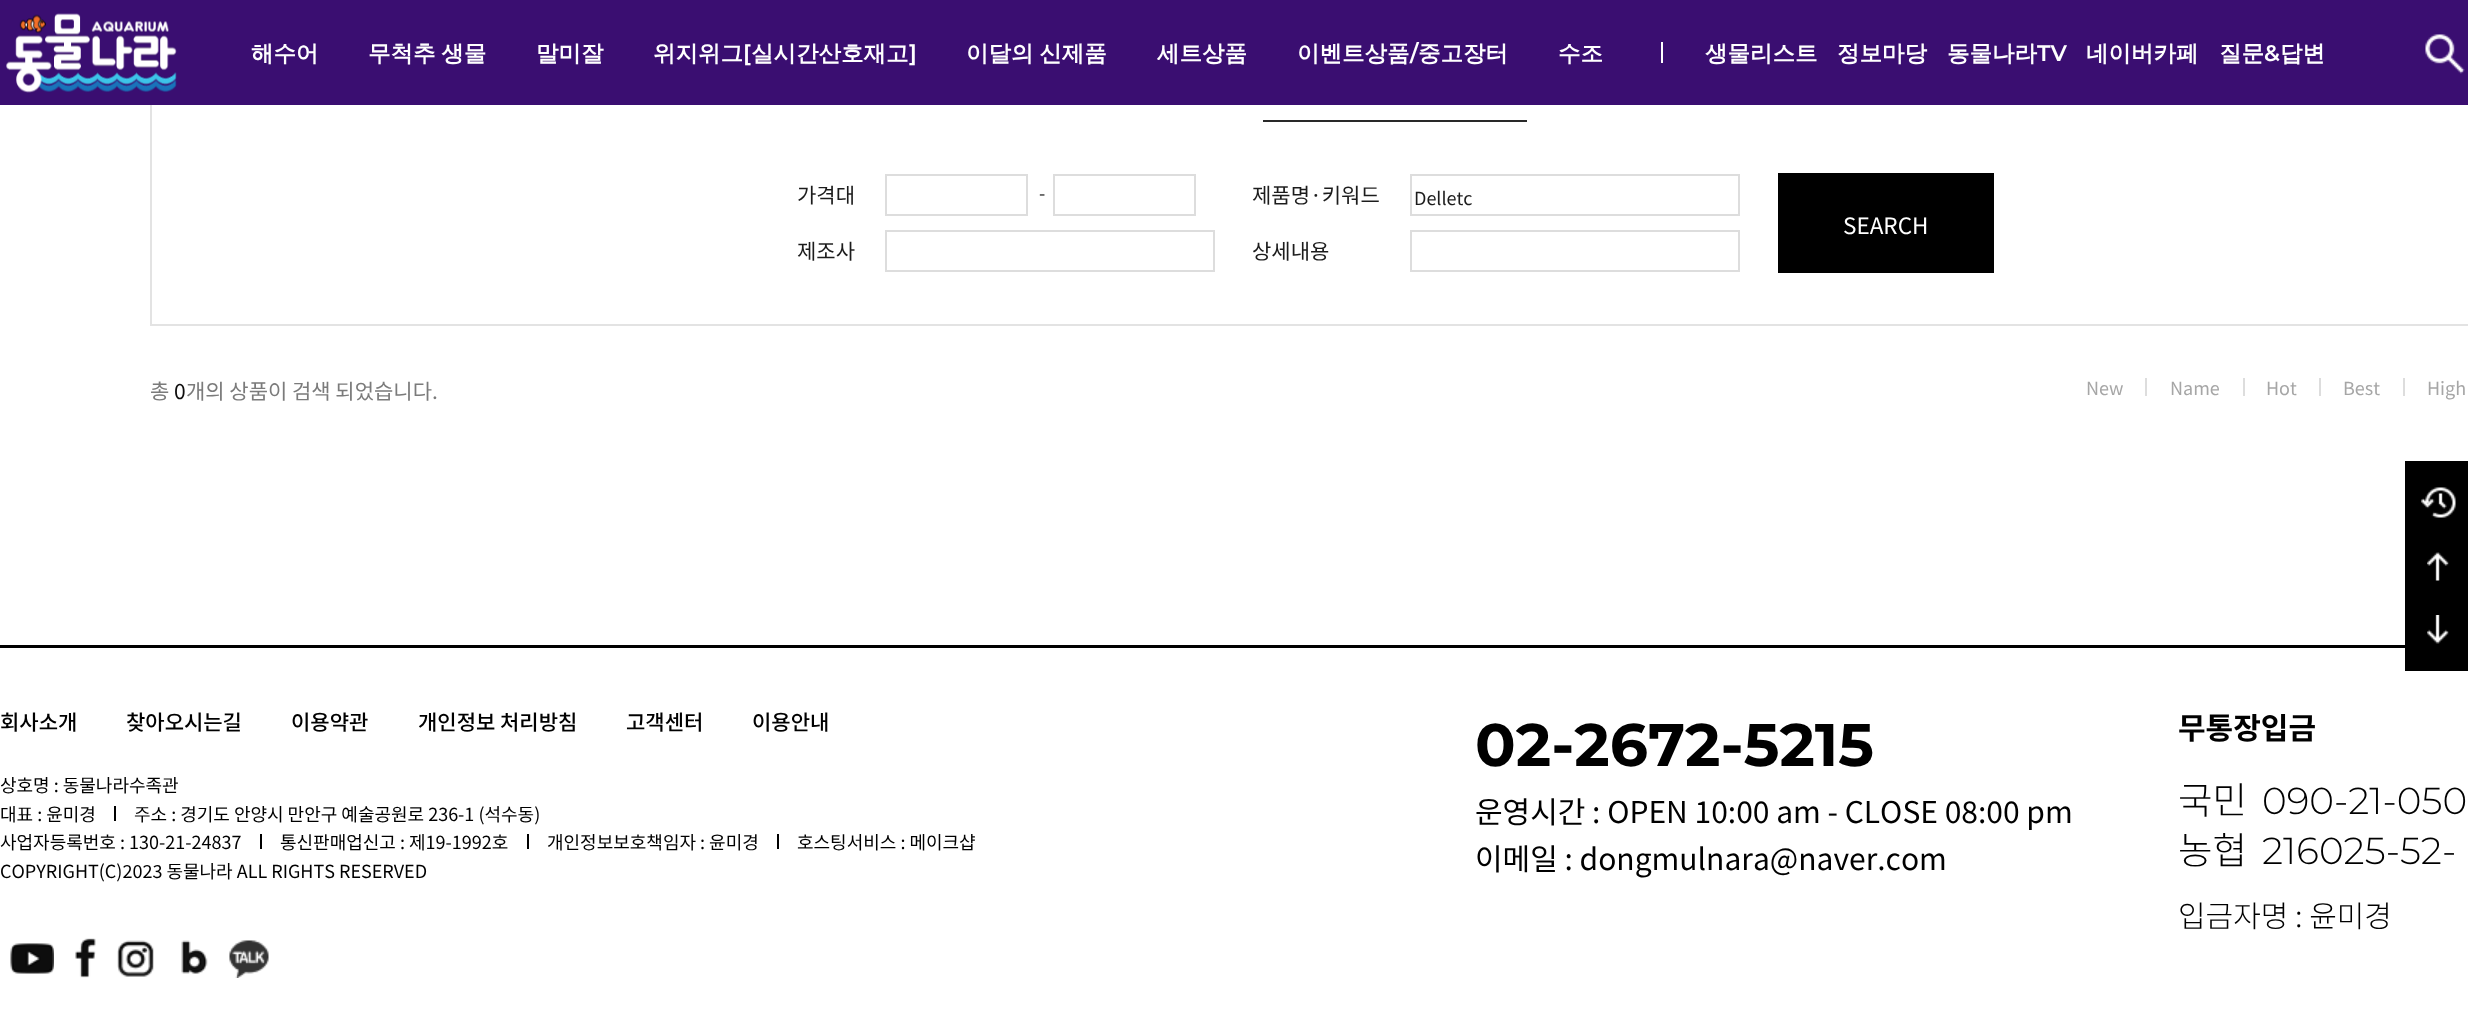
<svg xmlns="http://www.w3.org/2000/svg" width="2468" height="1026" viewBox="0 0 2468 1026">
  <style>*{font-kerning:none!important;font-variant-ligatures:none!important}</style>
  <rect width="100%" height="100%" fill="#ffffff"/>
  <rect x="151" y="37" width="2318" height="288" fill="none" stroke="#e3e3e3" stroke-width="2"/>
  <rect x="0" y="0" width="2468" height="105" fill="#3a0e71"/>
  <image x="6" y="13" width="171" height="80" href="img1.png"/>
  <text x="251" y="61" font-family="WenQuanYi Zen Hei" font-size="22.5" font-weight="bold" fill="#ffffff">해수어</text>
  <text x="368" y="61" word-spacing="-1" font-family="WenQuanYi Zen Hei" font-size="22.5" font-weight="bold" fill="#ffffff">무척추 생물</text>
  <text x="536" y="61" font-family="WenQuanYi Zen Hei" font-size="22.5" font-weight="bold" fill="#ffffff">말미잘</text>
  <text x="653" y="61" font-family="WenQuanYi Zen Hei" font-size="22.5" font-weight="bold" fill="#ffffff">위지위그</text>
  <text x="743" y="61" font-family="Montserrat" font-size="22.5" font-weight="600" fill="#ffffff">[</text>
  <text x="751" y="61" font-family="WenQuanYi Zen Hei" font-size="22.5" font-weight="bold" fill="#ffffff">실시간산호재고</text>
  <text x="909" y="61" font-family="Montserrat" font-size="22.5" font-weight="600" fill="#ffffff">]</text>
  <text x="966" y="61" word-spacing="-1" font-family="WenQuanYi Zen Hei" font-size="22.5" font-weight="bold" fill="#ffffff">이달의 신제품</text>
  <text x="1157" y="61" font-family="WenQuanYi Zen Hei" font-size="22.5" font-weight="bold" fill="#ffffff">세트상품</text>
  <text x="1297" y="61" font-family="WenQuanYi Zen Hei" font-size="22.5" font-weight="bold" fill="#ffffff">이벤트상품</text>
  <text x="1410" y="61" font-family="Montserrat" font-size="22.5" font-weight="600" fill="#ffffff">/</text>
  <text x="1418" y="61" font-family="WenQuanYi Zen Hei" font-size="22.5" font-weight="bold" fill="#ffffff">중고장터</text>
  <text x="1558" y="61" font-family="WenQuanYi Zen Hei" font-size="22.5" font-weight="bold" fill="#ffffff">수조</text>
  <rect x="1661" y="42" width="2" height="21" fill="#ffffff"/>
  <text x="1705" y="61" font-family="WenQuanYi Zen Hei" font-size="22.5" font-weight="bold" fill="#ffffff">생물리스트</text>
  <text x="1837" y="61" font-family="WenQuanYi Zen Hei" font-size="22.5" font-weight="bold" fill="#ffffff">정보마당</text>
  <text x="1947" y="61" font-family="WenQuanYi Zen Hei" font-size="22.5" font-weight="bold" fill="#ffffff">동물나라</text>
  <text x="2037" y="61" font-family="Montserrat" font-size="22.5" font-weight="600" fill="#ffffff">TV</text>
  <text x="2086" y="61" font-family="WenQuanYi Zen Hei" font-size="22.5" font-weight="bold" fill="#ffffff">네이버카페</text>
  <text x="2219" y="61" font-family="WenQuanYi Zen Hei" font-size="22.5" font-weight="bold" fill="#ffffff">질문</text>
  <text x="2264" y="61" font-family="Montserrat" font-size="22.5" font-weight="600" fill="#ffffff">&amp;</text>
  <text x="2280" y="61" font-family="WenQuanYi Zen Hei" font-size="22.5" font-weight="bold" fill="#ffffff">답변</text>
  <image x="2425" y="34" width="40" height="40" href="img2.png"/>
  <rect x="1263" y="120" width="264" height="2" fill="#292929"/>
  <text x="797" y="203" font-family="Noto Sans KR" font-size="21" fill="#1c1c1c">가격대</text>
  <rect x="886" y="175" width="141" height="40" fill="none" stroke="#dddddd" stroke-width="2"/>
  <text x="1039" y="200" font-family="Noto Sans KR" font-size="18" fill="#1c1c1c">-</text>
  <rect x="1054" y="175" width="141" height="40" fill="none" stroke="#dddddd" stroke-width="2"/>
  <text x="1252" y="203" font-family="Noto Sans KR" font-size="21" fill="#1c1c1c">제품명·키워드</text>
  <rect x="1411" y="175" width="328" height="40" fill="none" stroke="#dddddd" stroke-width="2"/>
  <text x="1414" y="205" font-family="Noto Sans KR" font-size="18" fill="#1c1c1c">Delletc</text>
  <rect x="1778" y="173" width="216" height="100" fill="#000000"/>
  <text x="1843" y="234" font-family="Noto Sans KR" font-size="22.5" fill="#ffffff">SEARCH</text>
  <text x="797" y="259" font-family="Noto Sans KR" font-size="21" fill="#1c1c1c">제조사</text>
  <rect x="886" y="231" width="328" height="40" fill="none" stroke="#dddddd" stroke-width="2"/>
  <text x="1252" y="259" font-family="Noto Sans KR" font-size="21" fill="#1c1c1c">상세내용</text>
  <rect x="1411" y="231" width="328" height="40" fill="none" stroke="#dddddd" stroke-width="2"/>
  <text x="150" y="399" font-family="Noto Sans KR" font-size="21" fill="#7b7b7b">총</text>
  <text x="174" y="399" font-family="Noto Sans KR" font-size="21" fill="#0e0d0d">0</text>
  <text x="186" y="399" font-family="Noto Sans KR" font-size="21" fill="#7b7b7b">개의 상품이 검색 되었습니다.</text>
  <rect x="2145" y="378" width="2" height="18" fill="#dddddd"/>
  <text x="2086" y="395" font-family="Noto Sans KR" font-size="18" fill="#a6a6a6">New</text>
  <rect x="2243" y="378" width="2" height="18" fill="#dddddd"/>
  <text x="2170" y="395" font-family="Noto Sans KR" font-size="18" fill="#a6a6a6">Name</text>
  <rect x="2319" y="378" width="2" height="18" fill="#dddddd"/>
  <text x="2266" y="395" font-family="Noto Sans KR" font-size="18" fill="#a6a6a6">Hot</text>
  <rect x="2403" y="378" width="2" height="18" fill="#dddddd"/>
  <text x="2343" y="395" font-family="Noto Sans KR" font-size="18" fill="#a6a6a6">Best</text>
  <text x="2427" y="395" font-family="Noto Sans KR" font-size="18" fill="#a6a6a6">High</text>
  <rect x="0" y="645" width="2405" height="3" fill="#000000"/>
  <text x="0" y="730" font-family="Noto Sans KR" font-size="21" font-weight="500" fill="#000000">회사소개</text>
  <text x="126" y="730" font-family="Noto Sans KR" font-size="21" font-weight="500" fill="#000000">찾아오시는길</text>
  <text x="291" y="730" font-family="Noto Sans KR" font-size="21" font-weight="500" fill="#000000">이용약관</text>
  <text x="418" y="730" font-family="Noto Sans KR" font-size="21" font-weight="500" fill="#000000">개인정보 처리방침</text>
  <text x="626" y="730" font-family="Noto Sans KR" font-size="21" font-weight="500" fill="#000000">고객센터</text>
  <text x="752" y="730" font-family="Noto Sans KR" font-size="21" font-weight="500" fill="#000000">이용안내</text>
  <text x="0" y="792" font-family="Noto Sans KR" font-size="18" fill="#000000">상호명 : 동물나라수족관</text>
  <text x="0" y="821" font-family="Noto Sans KR" font-size="18" fill="#000000">대표 : 윤미경</text>
  <rect x="114" y="806" width="2" height="15" fill="#000000"/>
  <text x="134" y="821" font-family="Noto Sans KR" font-size="18" fill="#000000">주소 : 경기도 안양시 만안구 예술공원로 236-1 (석수동)</text>
  <text x="0" y="849" font-family="Noto Sans KR" font-size="18" fill="#000000">사업자등록번호 : 130-21-24837</text>
  <rect x="260" y="834" width="2" height="15" fill="#000000"/>
  <text x="280" y="849" font-family="Noto Sans KR" font-size="18" fill="#000000">통신판매업신고 : 제19-1992호</text>
  <rect x="527" y="834" width="2" height="15" fill="#000000"/>
  <text x="547" y="849" font-family="Noto Sans KR" font-size="18" fill="#000000">개인정보보호책임자 : 윤미경</text>
  <rect x="777" y="834" width="2" height="15" fill="#000000"/>
  <text x="797" y="849" font-family="Noto Sans KR" font-size="18" fill="#000000">호스팅서비스 : 메이크샵</text>
  <text x="0" y="878" font-family="Noto Sans KR" font-size="18" fill="#000000">COPYRIGHT(C)2023 동물나라 ALL RIGHTS RESERVED</text>
  <image x="10" y="943" width="44" height="31" href="img3.png"/>
  <image x="75" y="938" width="21" height="40" href="img4.png"/>
  <image x="117" y="940" width="37" height="37" href="img5.png"/>
  <image x="181" y="940" width="27" height="34" href="img6.png"/>
  <image x="229" y="940" width="40" height="38" href="img7.png"/>
  <text x="1475" y="766" font-family="Montserrat" font-size="60" font-weight="bold" fill="#000000">02-2672-5215</text>
  <text x="1475" y="823" font-family="Noto Sans KR" font-size="30" fill="#000000">운영시간 : OPEN 10:00 am - CLOSE 08:00 pm</text>
  <text x="1475" y="870" font-family="Noto Sans KR" font-size="30" fill="#000000">이메일 : dongmulnara@naver.com</text>
  <text x="2178" y="739" font-family="Noto Sans KR" font-size="30" font-weight="bold" fill="#000000">무통장입금</text>
  <text x="2178" y="814" font-family="Noto Sans KR" font-size="37.5" font-weight="300" fill="#000000">국민</text>
  <text x="2262" y="814" font-family="Montserrat" font-size="37.5" font-weight="300" fill="#000000">090-21-050</text>
  <text x="2178" y="864" font-family="Noto Sans KR" font-size="37.5" font-weight="300" fill="#000000">농협</text>
  <text x="2262" y="864" font-family="Montserrat" font-size="37.5" font-weight="300" fill="#000000">216025-52-</text>
  <text x="2178" y="927" font-family="Noto Sans KR" font-size="30" font-weight="300" fill="#000000">입금자명 : 윤미경</text>
  <rect x="2405" y="461" width="63" height="210" fill="#000000"/>
  <image x="2421" y="487" width="35" height="31" href="img8.png"/>
  <image x="2427" y="552" width="22" height="29" href="img9.png"/>
  <image x="2427" y="615" width="22" height="29" href="img10.png"/>
</svg>
